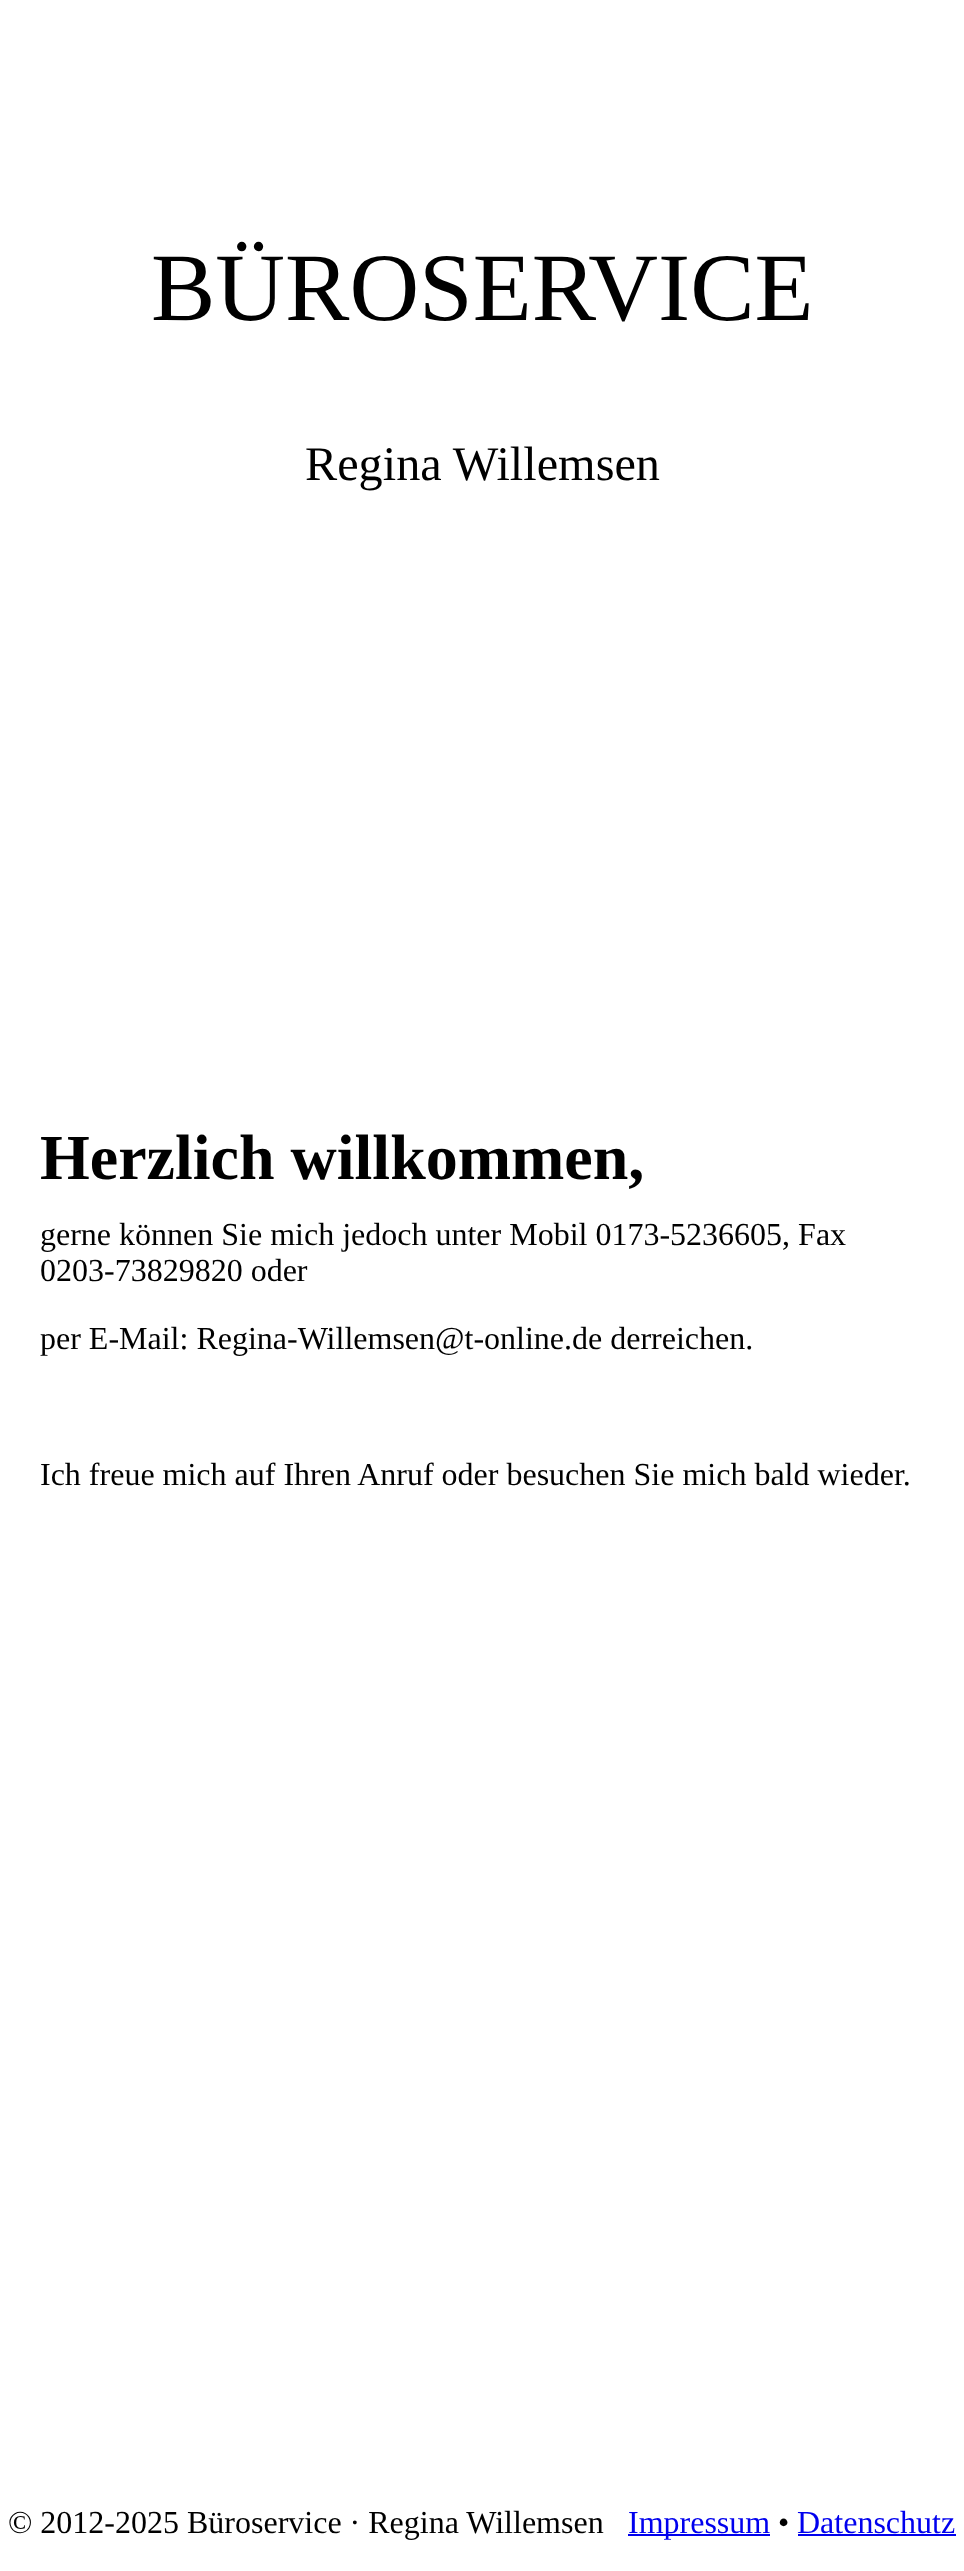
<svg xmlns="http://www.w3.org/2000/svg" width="964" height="2571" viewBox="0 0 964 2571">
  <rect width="100%" height="100%" fill="#ffffff"/>
  <text x="151" y="320" font-family="Liberation Serif" font-size="96.5" fill="#000000">BÜROSERVICE</text>
  <text x="305" y="480" font-family="Liberation Serif" font-size="48.25" fill="#000000">Regina Willemsen</text>
  <text x="40" y="1179" font-family="Liberation Serif" font-size="64" font-weight="bold" fill="#000000">Herzlich willkommen,</text>
  <text x="40" y="1245" font-family="Liberation Serif" font-size="32" fill="#000000">gerne können Sie mich jedoch unter Mobil 0173-5236605, Fax</text>
  <text x="40" y="1281" font-family="Liberation Serif" font-size="32" fill="#000000">0203-73829820 oder</text>
  <text x="40" y="1349" font-family="Liberation Serif" font-size="32" fill="#000000">per E-Mail: Regina-Willemsen@t-online.de derreichen.</text>
  <text x="40" y="1485" font-family="Liberation Serif" font-size="32" fill="#000000">Ich freue mich auf Ihren Anruf oder besuchen Sie mich bald wieder.</text>
  <text x="8" y="2533" font-family="Liberation Serif" font-size="32" fill="#000000">© 2012-2025 Büroservice · Regina Willemsen</text>
  <rect x="628" y="2534" width="142" height="2" fill="#0000ee"/>
  <text x="628" y="2533" font-family="Liberation Serif" font-size="32" fill="#0000ee">Impressum</text>
  <text x="778" y="2533" font-family="Liberation Serif" font-size="32" fill="#000000">•</text>
  <text x="797" y="2533" font-family="Liberation Serif" font-size="32" fill="#0000ee">Datenschutz</text>
  <rect x="798" y="2534" width="158" height="2" fill="#0000ee"/>
</svg>
